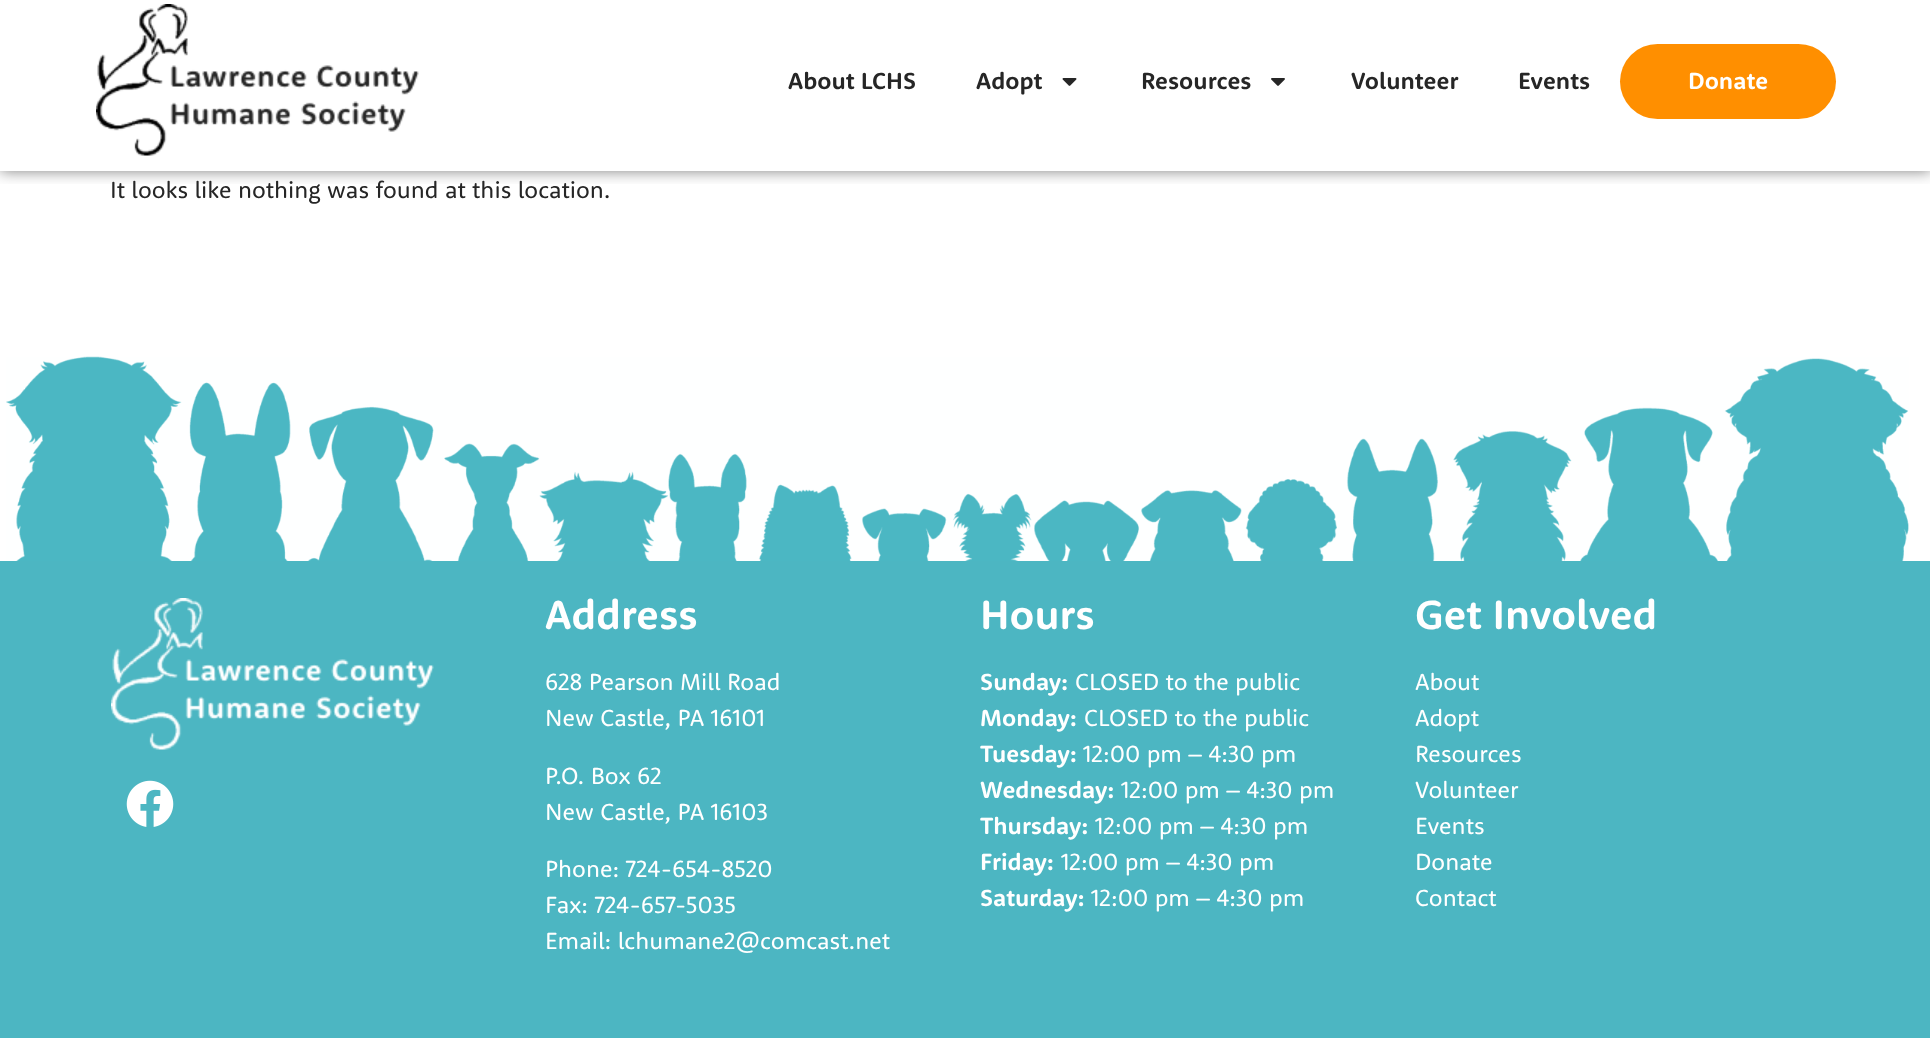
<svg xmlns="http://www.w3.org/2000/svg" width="1930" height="1038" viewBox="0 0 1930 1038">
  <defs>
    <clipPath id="clip1"><rect x="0" y="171" width="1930" height="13"/></clipPath>
    <filter id="blur1" x="-50%" y="-200%" width="200%" height="500%"><feGaussianBlur stdDeviation="7.5"/></filter>
  </defs>
  <rect width="100%" height="100%" fill="#ffffff"/>
  <g clip-path="url(#clip1)">
    <rect x="0" y="-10" width="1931" height="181" fill="#000000" fill-opacity="0.5" filter="url(#blur1)"/>
  </g>
  <image x="96" y="4" width="323" height="152" href="img1.png"/>
  <text x="788" y="89" font-family="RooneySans" font-size="24" font-weight="bold" fill="#262626">About LCHS</text>
  <text x="976" y="89" font-family="RooneySans" font-size="24" font-weight="bold" fill="#262626">Adopt</text>
  <image x="1062" y="78" width="15" height="8" href="img2.png"/>
  <text x="1141" y="89" font-family="RooneySans" font-size="24" font-weight="bold" fill="#262626">Resources</text>
  <image x="1271" y="78" width="14" height="8" href="img3.png"/>
  <text x="1351" y="89" font-family="RooneySans" font-size="24" font-weight="bold" fill="#262626">Volunteer</text>
  <text x="1518" y="89" font-family="RooneySans" font-size="24" font-weight="bold" fill="#262626">Events</text>
  <rect x="1620" y="44" width="216" height="75" rx="37.5" fill="#ff8f00"/>
  <text x="1688" y="89" font-family="RooneySans" font-size="24" font-weight="bold" fill="#ffffff">Donate</text>
  <text x="110" y="198" font-family="RooneySans" font-size="24" fill="#262626">It looks like nothing was found at this location.</text>
  <image x="6" y="356" width="1903" height="205" href="img4.png"/>
  <rect x="0" y="561" width="1930" height="477" fill="#4cb6c2"/>
  <image x="111" y="598" width="323" height="152" href="img5.png"/>
  <image x="126" y="780" width="48" height="47" href="img6.png"/>
  <text x="545" y="629" font-family="RooneySans" font-size="42" font-weight="bold" fill="#ffffff">Address</text>
  <text x="545" y="690" font-family="RooneySans" font-size="24" fill="#ffffff">628 Pearson Mill Road</text>
  <text x="545" y="726" font-family="RooneySans" font-size="24" fill="#ffffff">New Castle, PA 16101</text>
  <text x="545" y="784" font-family="RooneySans" font-size="24" fill="#ffffff">P.O. Box 62</text>
  <text x="545" y="820" font-family="RooneySans" font-size="24" fill="#ffffff">New Castle, PA 16103</text>
  <text x="545" y="877" font-family="RooneySans" font-size="24" fill="#ffffff">Phone: 724-654-8520</text>
  <text x="545" y="913" font-family="RooneySans" font-size="24" fill="#ffffff">Fax: 724-657-5035</text>
  <text x="545" y="949" font-family="RooneySans" font-size="24" fill="#ffffff">Email: lchumane2@comcast.net</text>
  <text x="980" y="629" font-family="RooneySans" font-size="42" font-weight="bold" fill="#ffffff">Hours</text>
  <text x="980" y="690" font-family="RooneySans" font-size="24" font-weight="bold" fill="#ffffff">Sunday:</text>
  <text x="1075" y="690" font-family="RooneySans" font-size="24" fill="#ffffff">CLOSED to the public</text>
  <text x="980" y="726" font-family="RooneySans" font-size="24" font-weight="bold" fill="#ffffff">Monday:</text>
  <text x="1084" y="726" font-family="RooneySans" font-size="24" fill="#ffffff">CLOSED to the public</text>
  <text x="980" y="762" font-family="RooneySans" font-size="24" font-weight="bold" fill="#ffffff">Tuesday:</text>
  <text x="1083" y="762" font-family="RooneySans" font-size="24" fill="#ffffff">12:00 pm – 4:30 pm</text>
  <text x="980" y="798" font-family="RooneySans" font-size="24" font-weight="bold" fill="#ffffff">Wednesday:</text>
  <text x="1121" y="798" font-family="RooneySans" font-size="24" fill="#ffffff">12:00 pm – 4:30 pm</text>
  <text x="980" y="834" font-family="RooneySans" font-size="24" font-weight="bold" fill="#ffffff">Thursday:</text>
  <text x="1095" y="834" font-family="RooneySans" font-size="24" fill="#ffffff">12:00 pm – 4:30 pm</text>
  <text x="980" y="870" font-family="RooneySans" font-size="24" font-weight="bold" fill="#ffffff">Friday:</text>
  <text x="1061" y="870" font-family="RooneySans" font-size="24" fill="#ffffff">12:00 pm – 4:30 pm</text>
  <text x="980" y="906" font-family="RooneySans" font-size="24" font-weight="bold" fill="#ffffff">Saturday:</text>
  <text x="1091" y="906" font-family="RooneySans" font-size="24" fill="#ffffff">12:00 pm – 4:30 pm</text>
  <text x="1415" y="629" font-family="RooneySans" font-size="42" font-weight="bold" fill="#ffffff">Get Involved</text>
  <text x="1415" y="690" font-family="RooneySans" font-size="24" fill="#ffffff">About</text>
  <text x="1415" y="726" font-family="RooneySans" font-size="24" fill="#ffffff">Adopt</text>
  <text x="1415" y="762" font-family="RooneySans" font-size="24" fill="#ffffff">Resources</text>
  <text x="1415" y="798" font-family="RooneySans" font-size="24" fill="#ffffff">Volunteer</text>
  <text x="1415" y="834" font-family="RooneySans" font-size="24" fill="#ffffff">Events</text>
  <text x="1415" y="870" font-family="RooneySans" font-size="24" fill="#ffffff">Donate</text>
  <text x="1415" y="906" font-family="RooneySans" font-size="24" fill="#ffffff">Contact</text>
</svg>
